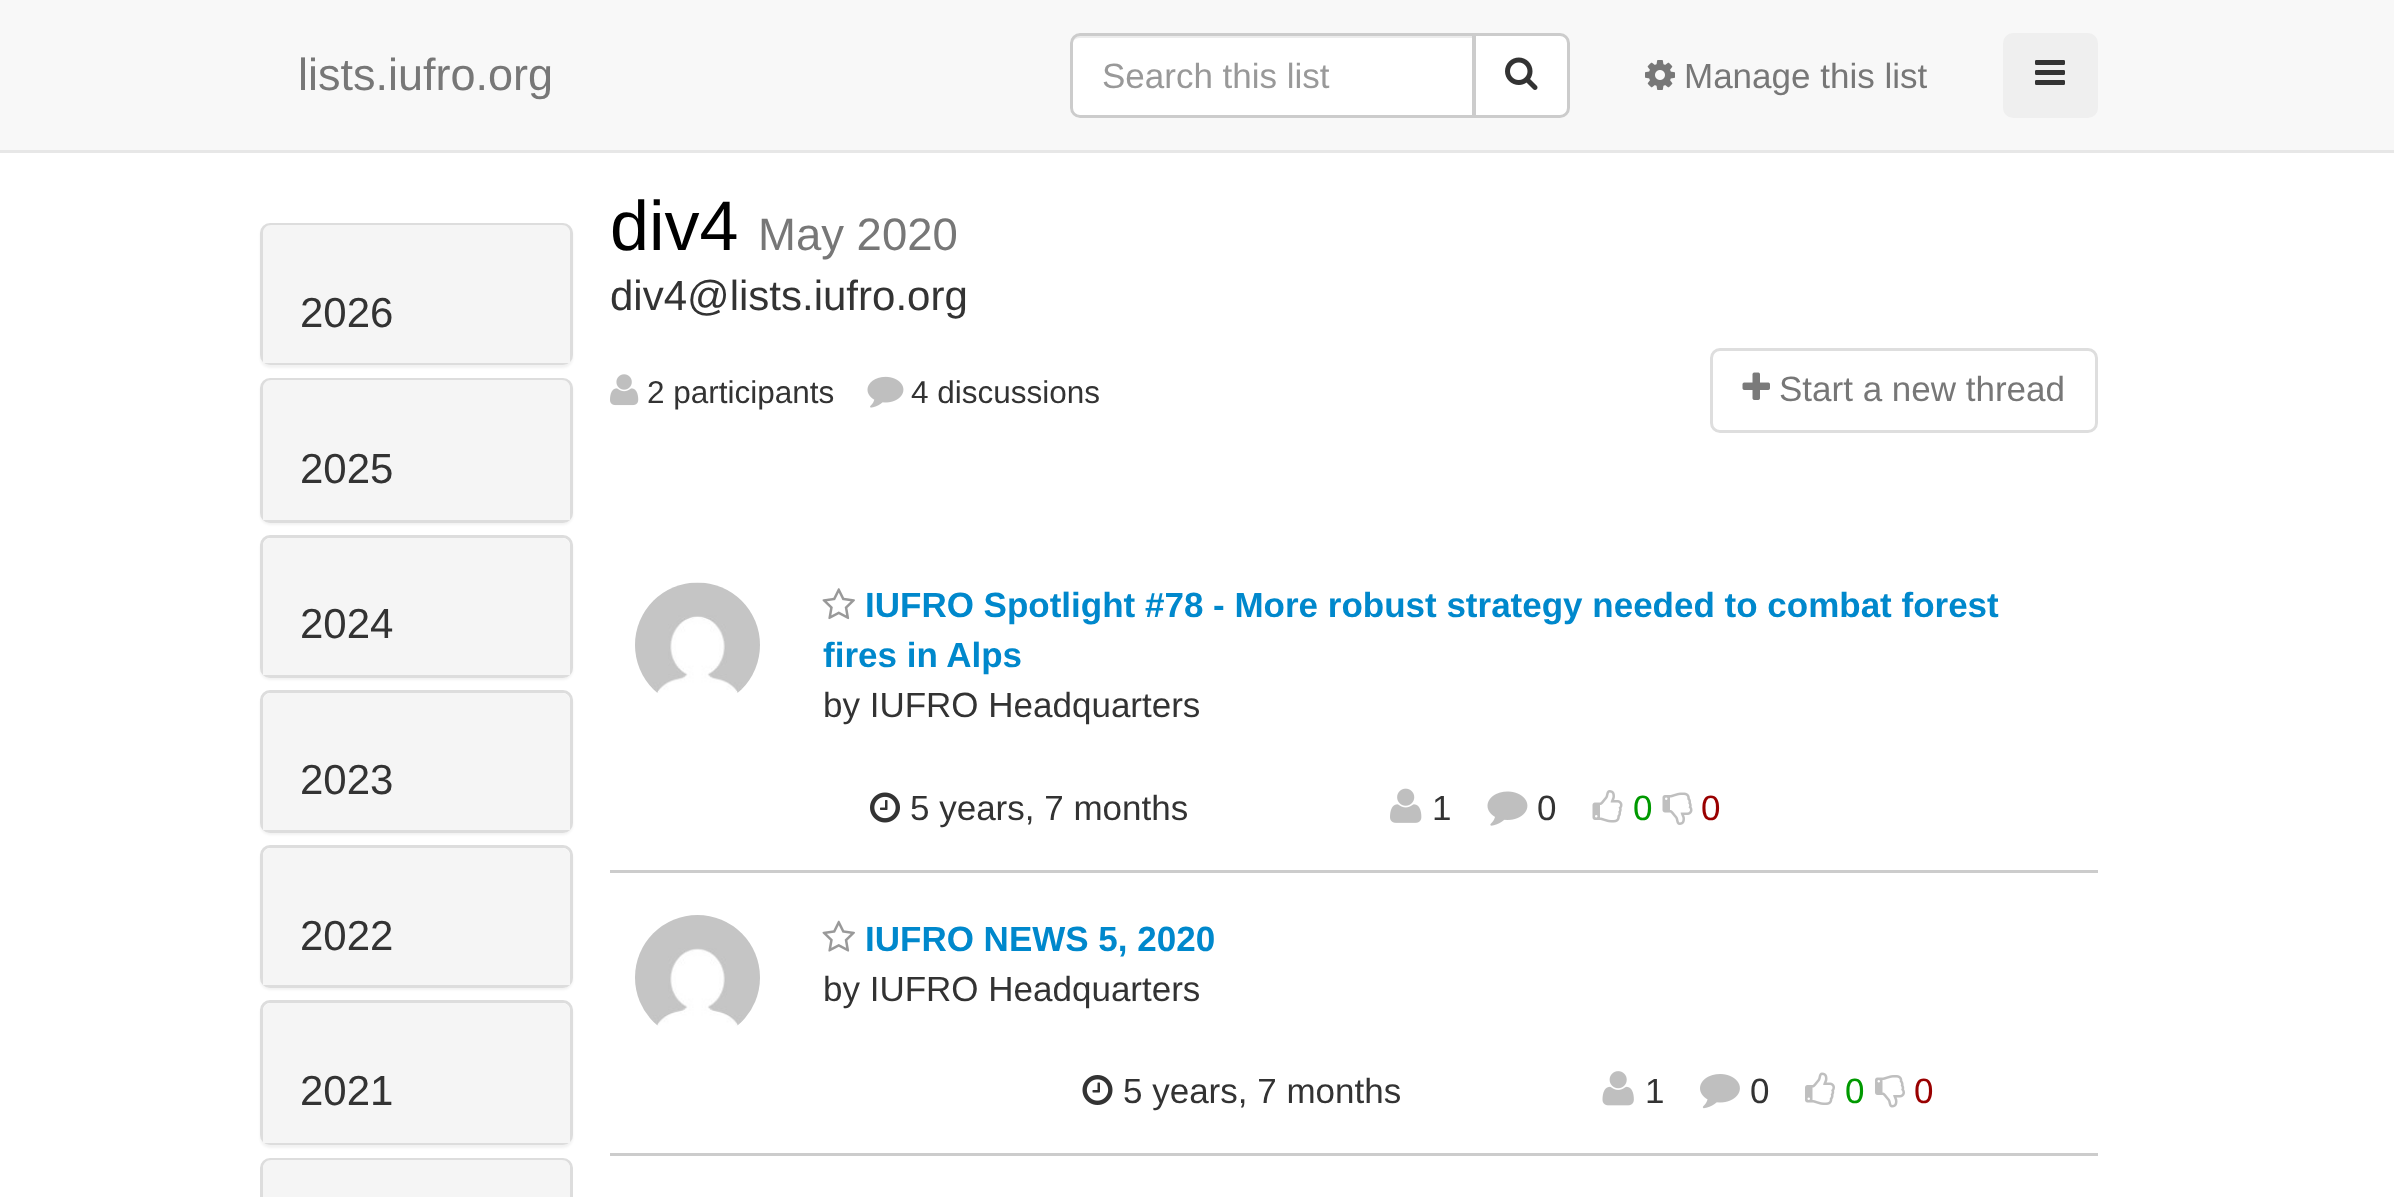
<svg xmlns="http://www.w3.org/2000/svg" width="2394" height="1197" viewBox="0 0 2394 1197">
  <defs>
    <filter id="blur1" x="-50%" y="-200%" width="200%" height="500%"><feGaussianBlur stdDeviation="1"/></filter>
  </defs>
  <rect width="100%" height="100%" fill="#ffffff"/>
  <rect x="0" y="0" width="2394" height="150" fill="#f8f8f8"/>
  <rect x="0" y="150" width="2394" height="3" fill="#e7e7e7"/>
  <text x="298" y="90" font-family="Liberation Sans" font-size="45" fill="#777777">lists.iufro.org</text>
  <path d="M1080 33H1475V118H1080C1074.5 118 1070 113.5 1070 108V43C1070 37.5 1074.5 33 1080 33Z" fill="#ffffff"/>
  <path d="M1080 38H1472V115H1473V35H1081C1077 35 1074 38 1073 41C1075 39 1077 38 1080 38Z" fill="#ececec"/>
  <path d="M1080 34.5H1473.5V116.5H1080C1075.5 116.5 1071.5 112.5 1071.5 108V43C1071.5 38.5 1075.5 34.5 1080 34.5Z" fill="none" stroke="#cccccc" stroke-width="3"/>
  <text x="1102" y="88" font-family="Liberation Sans" font-size="35" fill="#999999">Search this list</text>
  <path d="M1474.5 34.5H1560C1564.5 34.5 1568.5 38.5 1568.5 43V108C1568.5 112.5 1564.5 116.5 1560 116.5H1474.5Z" fill="#ffffff" stroke="#cccccc" stroke-width="3"/>
  <image x="1505" y="57" width="33" height="33" href="img1.png"/>
  <image x="1645" y="60" width="30" height="30" href="img2.png"/>
  <text x="1684" y="88" font-family="Liberation Sans" font-size="35" fill="#777777">Manage this list</text>
  <rect x="2003" y="33" width="95" height="85" rx="10" fill="#efefef"/>
  <image x="2035" y="60" width="30" height="25" href="img3.png"/>
  <rect x="260" y="225" width="313" height="143" rx="10" fill="#000000" fill-opacity="0.05" filter="url(#blur1)"/>
  <rect x="261.5" y="224.5" width="310" height="139" rx="8.5" fill="none" stroke="#dddddd" stroke-width="3"/>
  <path d="M271 225H562C566.5 225 570 228.5 570 233V363H263V233C263 228.5 266.5 225 271 225Z" fill="#f5f5f5"/>
  <text x="300" y="327" font-family="Liberation Sans" font-size="42" fill="#333333">2026</text>
  <rect x="260" y="380" width="313" height="145" rx="10" fill="#000000" fill-opacity="0.05" filter="url(#blur1)"/>
  <rect x="261.5" y="379.5" width="310" height="142" rx="8.5" fill="none" stroke="#dddddd" stroke-width="3"/>
  <path d="M271 380H562C566.5 380 570 383.5 570 388V520H263V388C263 383.5 266.5 380 271 380Z" fill="#f5f5f5"/>
  <text x="300" y="483" font-family="Liberation Sans" font-size="42" fill="#333333">2025</text>
  <rect x="260" y="538" width="313" height="142" rx="10" fill="#000000" fill-opacity="0.05" filter="url(#blur1)"/>
  <rect x="261.5" y="536.5" width="310" height="140" rx="8.5" fill="#ffffff" stroke="#dddddd" stroke-width="3"/>
  <path d="M271 538H562C566.5 538 570 541.5 570 546V675H263V546C263 541.5 266.5 538 271 538Z" fill="#f5f5f5"/>
  <text x="300" y="638" font-family="Liberation Sans" font-size="42" fill="#333333">2024</text>
  <rect x="260" y="693" width="313" height="142" rx="10" fill="#000000" fill-opacity="0.05" filter="url(#blur1)"/>
  <rect x="261.5" y="691.5" width="310" height="140" rx="8.5" fill="#ffffff" stroke="#dddddd" stroke-width="3"/>
  <path d="M271 693H562C566.5 693 570 696.5 570 701V830H263V701C263 696.5 266.5 693 271 693Z" fill="#f5f5f5"/>
  <text x="300" y="794" font-family="Liberation Sans" font-size="42" fill="#333333">2023</text>
  <rect x="260" y="848" width="313" height="142" rx="10" fill="#000000" fill-opacity="0.05" filter="url(#blur1)"/>
  <rect x="261.5" y="846.5" width="310" height="140" rx="8.5" fill="#ffffff" stroke="#dddddd" stroke-width="3"/>
  <path d="M271 848H562C566.5 848 570 851.5 570 856V985H263V856C263 851.5 266.5 848 271 848Z" fill="#f5f5f5"/>
  <text x="300" y="950" font-family="Liberation Sans" font-size="42" fill="#333333">2022</text>
  <rect x="260" y="1003" width="313" height="145" rx="10" fill="#000000" fill-opacity="0.05" filter="url(#blur1)"/>
  <rect x="261.5" y="1001.5" width="310" height="142" rx="8.5" fill="#ffffff" stroke="#dddddd" stroke-width="3"/>
  <path d="M271 1003H562C566.5 1003 570 1006.5 570 1011V1143H263V1011C263 1006.5 266.5 1003 271 1003Z" fill="#f5f5f5"/>
  <text x="300" y="1105" font-family="Liberation Sans" font-size="42" fill="#333333">2021</text>
  <rect x="261.5" y="1159.5" width="310" height="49" rx="8.5" fill="none" stroke="#dddddd" stroke-width="3"/>
  <path d="M271 1160H562C566.5 1160 570 1163.5 570 1168V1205H263V1168C263 1163.5 266.5 1160 271 1160Z" fill="#f5f5f5"/>
  <text x="610" y="250" font-family="Liberation Sans" font-size="70" fill="#000000">div4</text>
  <text x="758" y="250" font-family="Liberation Sans" font-size="45.5" fill="#777777">May 2020</text>
  <text x="610" y="310" font-family="Liberation Sans" font-size="42" fill="#333333">div4@lists.iufro.org</text>
  <image x="610" y="374" width="29" height="32" href="img4.png"/>
  <text x="647" y="403" font-family="Liberation Sans" font-size="31.5" fill="#333333">2 participants</text>
  <image x="867" y="376" width="37" height="32" href="img5.png"/>
  <text x="911" y="403" font-family="Liberation Sans" font-size="31.5" fill="#333333">4 discussions</text>
  <rect x="1711.5" y="349.5" width="385" height="82" rx="8.5" fill="none" stroke="#dedede" stroke-width="3"/>
  <image x="1742" y="372" width="28" height="28" href="img6.png"/>
  <text x="1779" y="401" font-family="Liberation Sans" font-size="35" fill="#777777">Start a new thread</text>
  <rect x="610" y="870" width="1488" height="3" fill="#cccccc"/>
  <image x="635" y="582" width="125" height="111" href="img7.png"/>
  <image x="822" y="588" width="33" height="32" href="img8.png"/>
  <text x="865" y="617" font-family="Liberation Sans" font-size="35" font-weight="bold" fill="#0088cc">IUFRO Spotlight #78 - More robust strategy needed to combat forest</text>
  <text x="823" y="667" font-family="Liberation Sans" font-size="35" font-weight="bold" fill="#0088cc">fires in Alps</text>
  <text x="823" y="717" font-family="Liberation Sans" font-size="35" fill="#333333">by IUFRO Headquarters</text>
  <image x="870" y="792" width="30" height="31" href="img9.png"/>
  <text x="910" y="820" font-family="Liberation Sans" font-size="35" fill="#333333">5 years, 7 months</text>
  <image x="1390" y="788" width="32" height="35" href="img10.png"/>
  <text x="1432" y="820" font-family="Liberation Sans" font-size="35" fill="#333333">1</text>
  <image x="1487" y="791" width="41" height="35" href="img11.png"/>
  <text x="1537" y="820" font-family="Liberation Sans" font-size="35" fill="#333333">0</text>
  <image x="1592" y="790" width="31" height="33" href="img12.png"/>
  <text x="1633" y="820" font-family="Liberation Sans" font-size="35" fill="#009900">0</text>
  <image x="1662" y="792" width="31" height="33" href="img13.png"/>
  <text x="1701" y="820" font-family="Liberation Sans" font-size="35" fill="#990000">0</text>
  <rect x="610" y="1153" width="1488" height="3" fill="#cccccc"/>
  <image x="635" y="915" width="125" height="111" href="img14.png"/>
  <image x="822" y="920" width="33" height="32" href="img15.png"/>
  <text x="865" y="951" font-family="Liberation Sans" font-size="35" font-weight="bold" fill="#0088cc">IUFRO NEWS 5, 2020</text>
  <text x="823" y="1001" font-family="Liberation Sans" font-size="35" fill="#333333">by IUFRO Headquarters</text>
  <image x="1082" y="1075" width="31" height="30" href="img16.png"/>
  <text x="1123" y="1103" font-family="Liberation Sans" font-size="35" fill="#333333">5 years, 7 months</text>
  <image x="1602" y="1071" width="32" height="35" href="img17.png"/>
  <text x="1645" y="1103" font-family="Liberation Sans" font-size="35" fill="#333333">1</text>
  <image x="1700" y="1074" width="40" height="35" href="img18.png"/>
  <text x="1750" y="1103" font-family="Liberation Sans" font-size="35" fill="#333333">0</text>
  <image x="1805" y="1072" width="30" height="33" href="img19.png"/>
  <text x="1845" y="1103" font-family="Liberation Sans" font-size="35" fill="#009900">0</text>
  <image x="1875" y="1075" width="30" height="33" href="img20.png"/>
  <text x="1914" y="1103" font-family="Liberation Sans" font-size="35" fill="#990000">0</text>
</svg>
